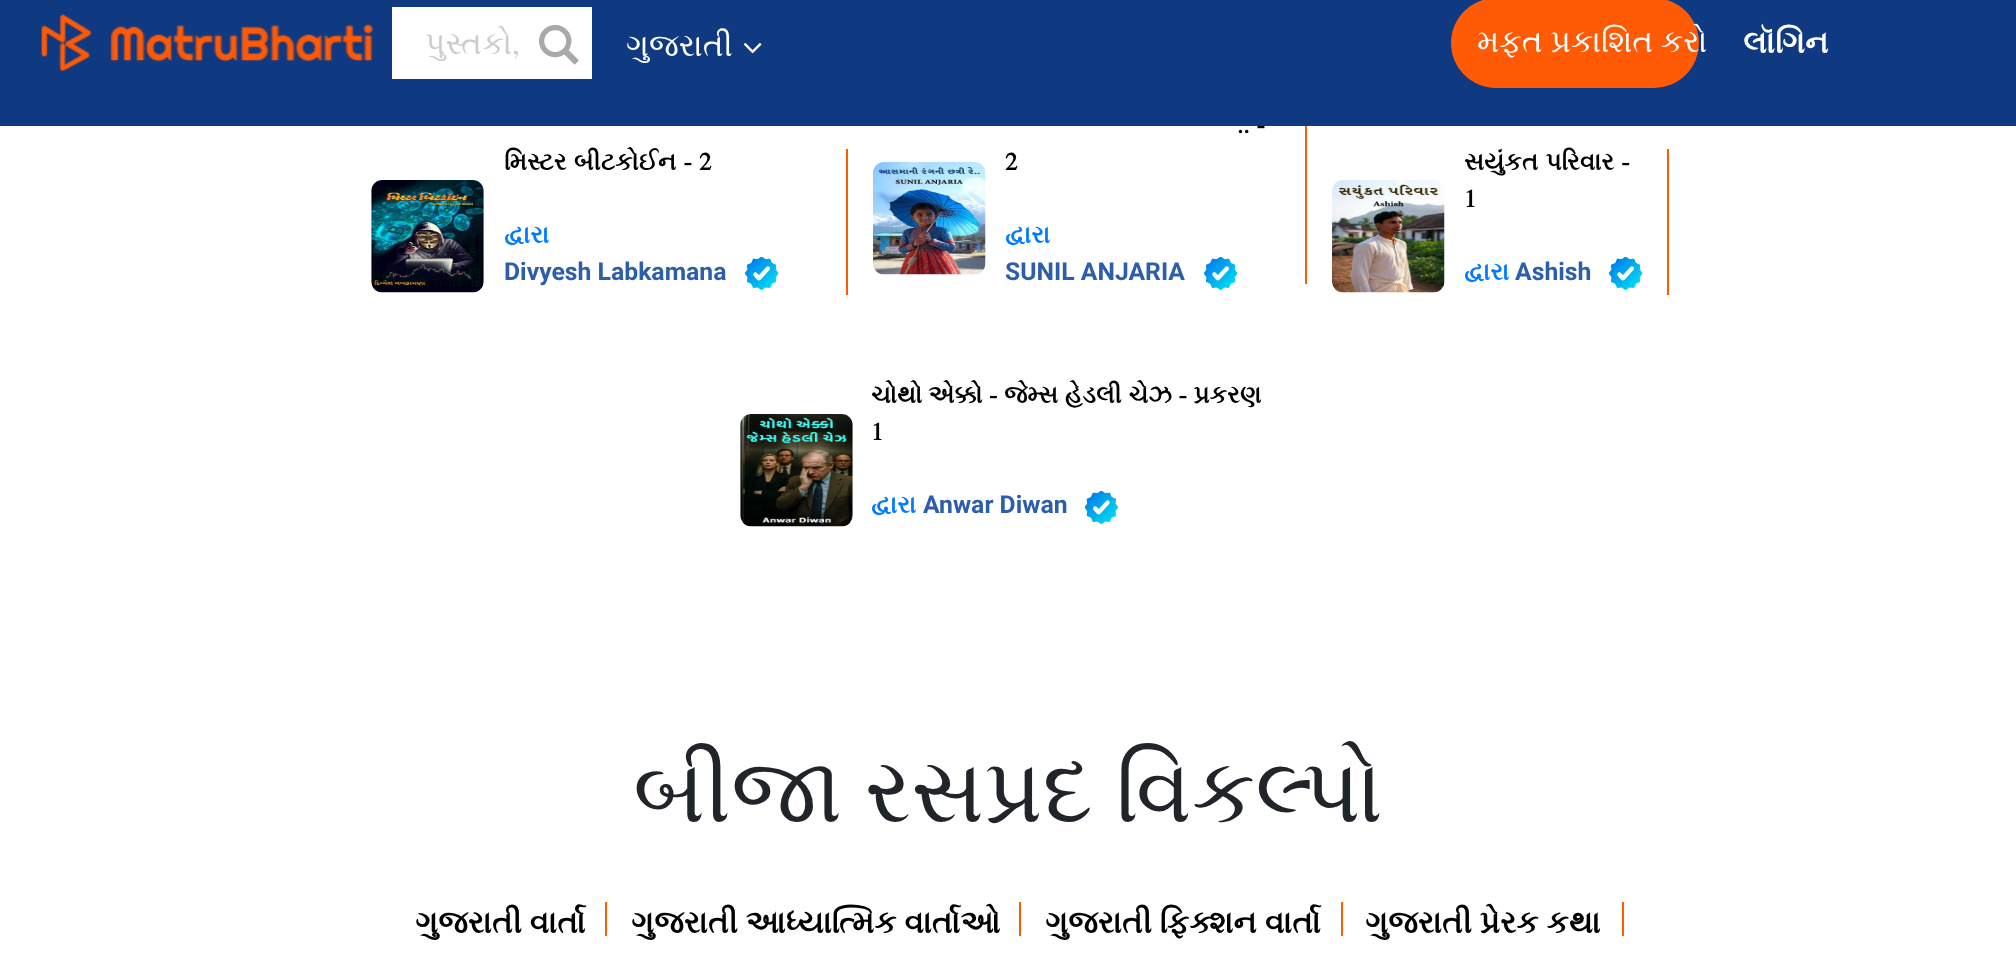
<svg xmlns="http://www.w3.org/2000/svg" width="2016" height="955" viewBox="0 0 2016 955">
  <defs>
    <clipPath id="clip1"><rect x="419" y="25" width="112" height="38"/></clipPath>
  </defs>
  <rect width="100%" height="100%" fill="#ffffff"/>
  <rect x="0" y="0" width="2016" height="126" fill="#0f3981"/>
  <image x="41" y="14" width="332" height="57" href="img1.png"/>
  <rect x="392" y="7" width="200" height="72" fill="#ffffff"/>
  <g clip-path="url(#clip1)">
    <text x="425" y="54" font-family="FreeSerif" font-size="31.5" fill="#cccccc">પુસ્તકો,</text>
  </g>
  <image x="539" y="25" width="40" height="40" href="img2.png"/>
  <text x="626" y="56" font-family="FreeSerif" font-size="31.5" fill="#ffffff">ગુજરાતી</text>
  <image x="743" y="43" width="19" height="11" href="img3.png"/>
  <rect x="1451" y="-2" width="248" height="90" rx="45" fill="#ff5a06"/>
  <text x="1477" y="52" font-family="FreeSerif" font-size="31.5" fill="#ffffff">મફત પ્રકાશિત કરો</text>
  <text x="1743" y="53" font-family="FreeSerif" font-size="31.5" font-weight="bold" fill="#ffffff">લૉગિન</text>
  <image x="371" y="180" width="113" height="113" href="img4.png"/>
  <text x="504" y="170" word-spacing="1" font-family="FreeSerif" font-size="24.75" font-weight="bold" fill="#000000">મિસ્ટર બીટકોઈન - 2</text>
  <text x="504" y="243" font-family="FreeSerif" font-size="24.75" font-weight="bold" fill="#007bff">દ્વારા</text>
  <text x="504" y="280" font-family="Roboto" font-size="24.75" font-weight="bold" fill="#2d5eac">Divyesh Labkamana</text>
  <image x="745" y="257" width="34" height="33" href="img5.png"/>
  <rect x="846" y="149" width="2" height="146" fill="#ff5a06"/>
  <image x="873" y="162" width="113" height="113" href="img6.png"/>
  <text x="1237" y="133" word-spacing="1" font-family="FreeSerif" font-size="24.75" font-weight="bold" fill="#000000">.. -</text>
  <text x="1005" y="170" font-family="FreeSerif" font-size="24.75" font-weight="bold" fill="#000000">2</text>
  <text x="1005" y="243" font-family="FreeSerif" font-size="24.75" font-weight="bold" fill="#007bff">દ્વારા</text>
  <text x="1005" y="280" font-family="Roboto" font-size="24.75" font-weight="bold" fill="#2d5eac">SUNIL ANJARIA</text>
  <image x="1204" y="257" width="34" height="33" href="img5.png"/>
  <rect x="1305" y="126" width="2" height="158" fill="#ff5a06"/>
  <image x="1332" y="180" width="113" height="113" href="img7.png"/>
  <text x="1464" y="170" word-spacing="1" font-family="FreeSerif" font-size="24.75" font-weight="bold" fill="#000000">સયુંકત પરિવાર -</text>
  <text x="1464" y="207" font-family="FreeSerif" font-size="24.75" font-weight="bold" fill="#000000">1</text>
  <text x="1464" y="280" font-family="FreeSerif" font-size="24.75" font-weight="bold" fill="#007bff">દ્વારા</text>
  <text x="1515" y="280" font-family="Roboto" font-size="24.75" font-weight="bold" fill="#2d5eac">Ashish</text>
  <image x="1609" y="257" width="34" height="33" href="img5.png"/>
  <rect x="1667" y="149" width="2" height="146" fill="#ff5a06"/>
  <image x="740" y="414" width="113" height="113" href="img8.png"/>
  <text x="871" y="403" font-family="FreeSerif" font-size="24.75" font-weight="bold" fill="#000000">ચોથો એક્કો</text>
  <text x="989" y="403" word-spacing="0.5" font-family="FreeSerif" font-size="24.75" font-weight="bold" fill="#000000">- જેમ્સ હેડલી ચેઝ - પ્રકરણ</text>
  <text x="871" y="440" font-family="FreeSerif" font-size="24.75" font-weight="bold" fill="#000000">1</text>
  <text x="871" y="513" font-family="FreeSerif" font-size="24.75" font-weight="bold" fill="#007bff">દ્વારા</text>
  <text x="923" y="513" font-family="Roboto" font-size="24.75" font-weight="bold" fill="#2d5eac">Anwar Diwan</text>
  <image x="1085" y="491" width="33" height="33" href="img9.png"/>
  <text x="633" y="822" font-family="FreeSerif" font-size="90" fill="#212529">બીજા રસપ્રદ વિકલ્પો</text>
  <text x="415" y="933" font-family="FreeSerif" font-size="31.5" font-weight="bold" fill="#000000">ગુજરાતી વાર્તા</text>
  <rect x="605" y="902" width="2" height="34" fill="#ff5a06"/>
  <text x="631" y="933" font-family="FreeSerif" font-size="31.5" font-weight="bold" fill="#000000">ગુજરાતી આધ્યાત્મિક વાર્તાઓ</text>
  <rect x="1019" y="902" width="2" height="34" fill="#ff5a06"/>
  <text x="1045" y="933" font-family="FreeSerif" font-size="31.5" font-weight="bold" fill="#000000">ગુજરાતી ફિક્શન વાર્તા</text>
  <rect x="1341" y="902" width="2" height="34" fill="#ff5a06"/>
  <text x="1365" y="933" font-family="FreeSerif" font-size="31.5" font-weight="bold" fill="#000000">ગુજરાતી પ્રેરક કથા</text>
  <rect x="1622" y="902" width="2" height="34" fill="#ff5a06"/>
</svg>
